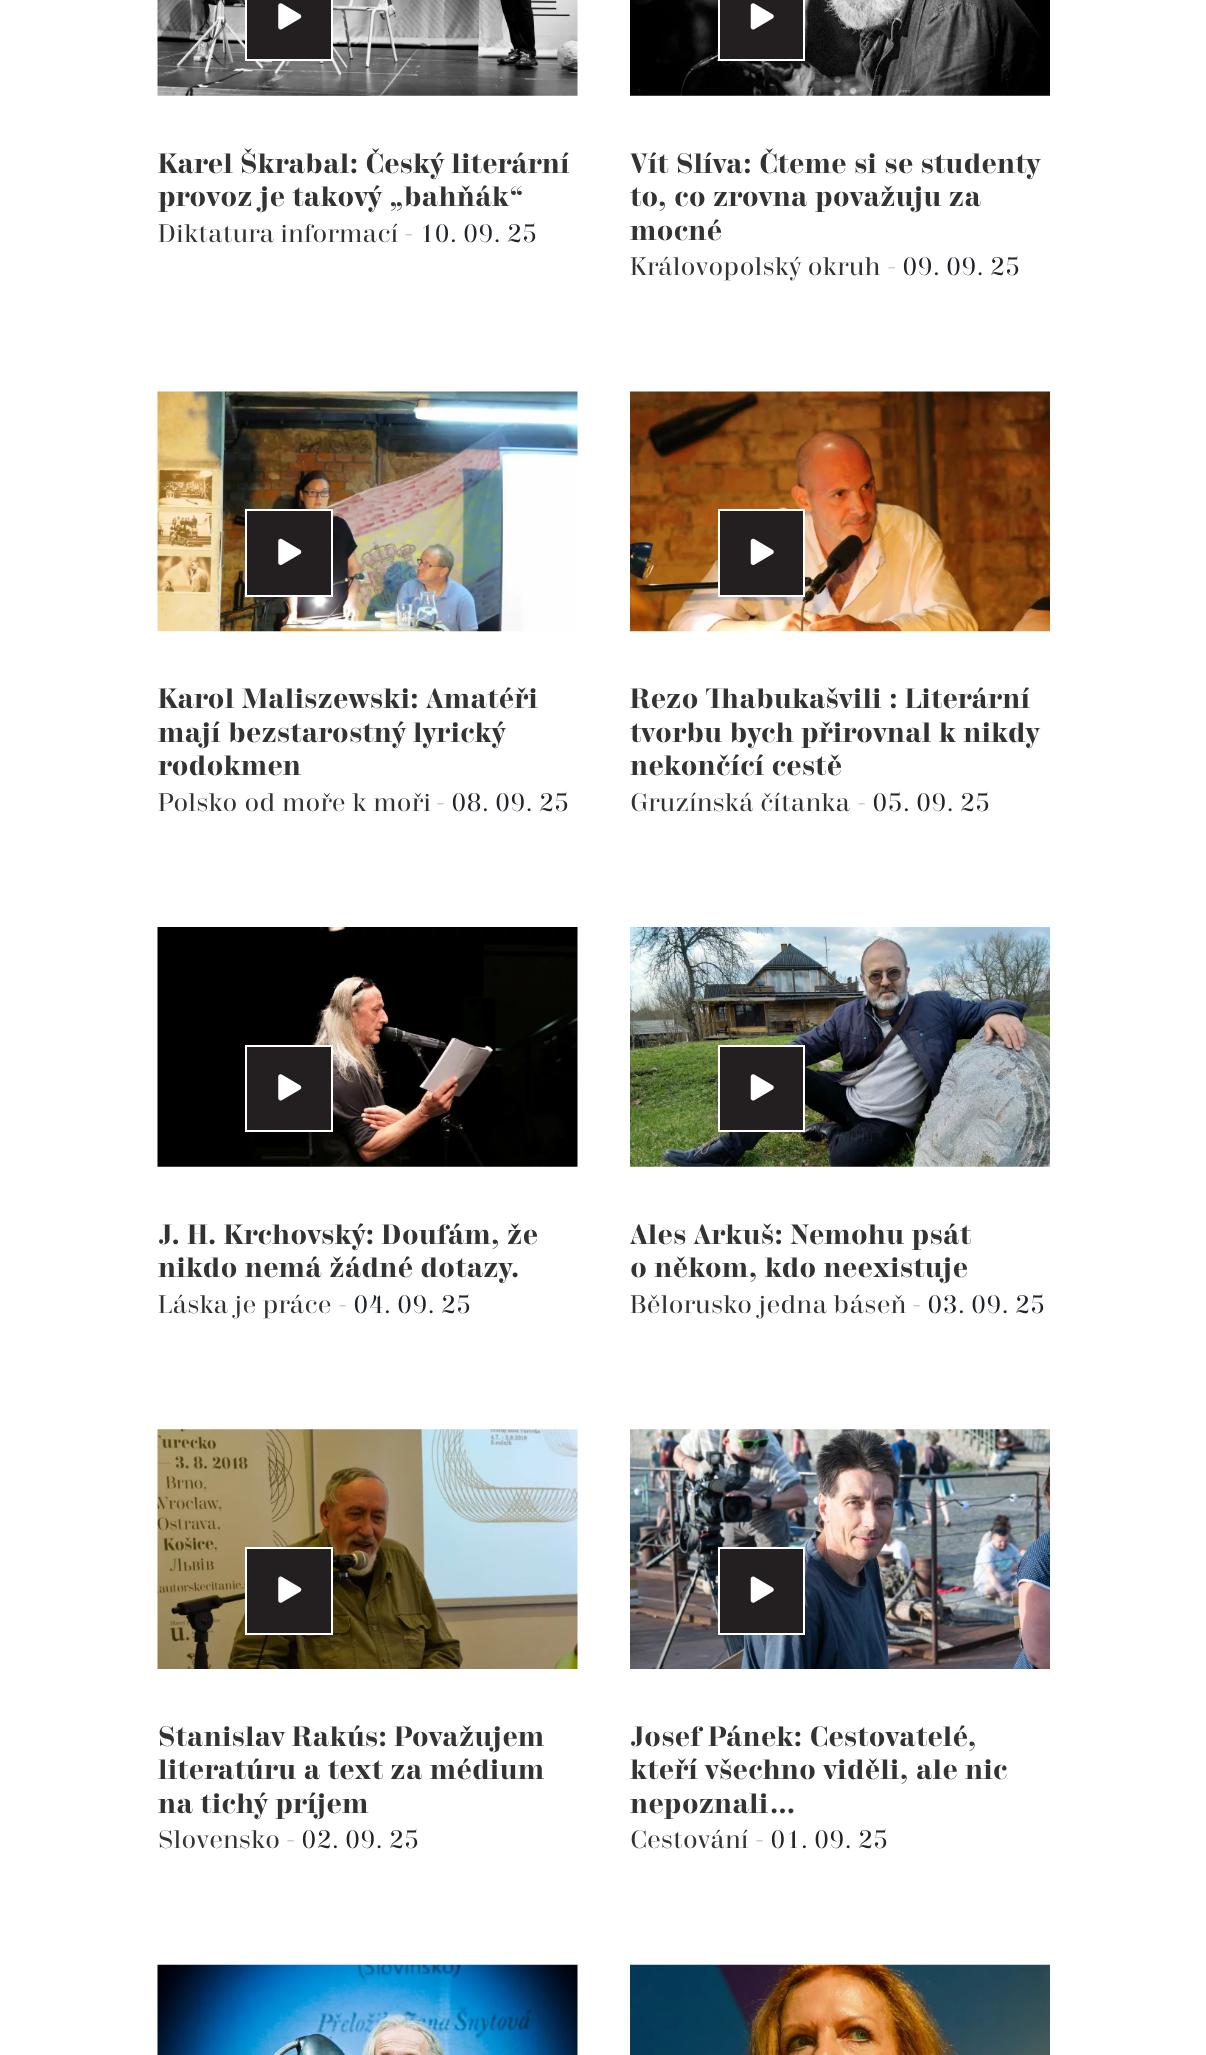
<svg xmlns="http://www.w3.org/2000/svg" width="1206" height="2055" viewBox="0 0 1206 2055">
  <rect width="100%" height="100%" fill="#ffffff"/>
  <image x="157" y="0" width="421" height="96" href="img2.png"/>
  <rect x="246" y="-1" width="86" height="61" fill="#231f20" stroke="#ffffff" stroke-width="2"/>
  <image x="278" y="3" width="24" height="27" href="img1.png"/>
  <text x="158" y="173" font-family="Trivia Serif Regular" font-size="28" font-weight="bold" fill="#333333">Karel Škrabal: Český literární</text>
  <text x="158" y="206" font-family="Trivia Serif Regular" font-size="28" font-weight="bold" fill="#333333">provoz je takový „bahňák“</text>
  <text x="158" y="242" font-family="Trivia Serif Regular" font-size="25.25" fill="#333333">Diktatura informací</text>
  <text x="404" y="242" font-family="Trivia Serif Regular" font-size="25.25" fill="#212529">- 10. 09. 25</text>
  <image x="630" y="0" width="420" height="96" href="img4.png"/>
  <rect x="719" y="-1" width="85" height="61" fill="#231f20" stroke="#ffffff" stroke-width="2"/>
  <image x="750" y="3" width="24" height="27" href="img3.png"/>
  <text x="630" y="173" font-family="Trivia Serif Regular" font-size="28" font-weight="bold" fill="#333333">Vít Slíva: Čteme si se studenty</text>
  <text x="630" y="206" font-family="Trivia Serif Regular" font-size="28" font-weight="bold" fill="#333333">to, co zrovna považuju za</text>
  <text x="630" y="240" font-family="Trivia Serif Regular" font-size="28" font-weight="bold" fill="#333333">mocné</text>
  <text x="630" y="275" font-family="Trivia Serif Regular" font-size="25.25" fill="#333333">Královopolský okruh</text>
  <text x="887" y="275" font-family="Trivia Serif Regular" font-size="25.25" fill="#212529">- 09. 09. 25</text>
  <image x="157" y="391" width="421" height="241" href="img5.png"/>
  <rect x="246" y="510" width="86" height="86" fill="#231f20" stroke="#ffffff" stroke-width="2"/>
  <image x="278" y="538" width="24" height="27" href="img6.png"/>
  <text x="158" y="708" font-family="Trivia Serif Regular" font-size="28" font-weight="bold" fill="#333333">Karol Maliszewski: Amatéři</text>
  <text x="158" y="742" font-family="Trivia Serif Regular" font-size="28" font-weight="bold" fill="#333333">mají bezstarostný lyrický</text>
  <text x="158" y="775" font-family="Trivia Serif Regular" font-size="28" font-weight="bold" fill="#333333">rodokmen</text>
  <text x="158" y="811" word-spacing="0.5" font-family="Trivia Serif Regular" font-size="25.25" fill="#333333">Polsko od moře k moři</text>
  <text x="436" y="811" font-family="Trivia Serif Regular" font-size="25.25" fill="#212529">- 08. 09. 25</text>
  <image x="630" y="391" width="420" height="241" href="img7.png"/>
  <rect x="719" y="510" width="85" height="86" fill="#231f20" stroke="#ffffff" stroke-width="2"/>
  <image x="750" y="538" width="24" height="27" href="img8.png"/>
  <text x="630" y="708" font-family="Trivia Serif Regular" font-size="28" font-weight="bold" fill="#333333">Rezo Thabukašvili : Literární</text>
  <text x="630" y="742" font-family="Trivia Serif Regular" font-size="28" font-weight="bold" fill="#333333">tvorbu bych přirovnal k nikdy</text>
  <text x="630" y="775" font-family="Trivia Serif Regular" font-size="28" font-weight="bold" fill="#333333">nekončící cestě</text>
  <text x="630" y="811" font-family="Trivia Serif Regular" font-size="25.25" fill="#333333">Gruzínská čítanka</text>
  <text x="857" y="811" font-family="Trivia Serif Regular" font-size="25.25" fill="#212529">- 05. 09. 25</text>
  <image x="157" y="927" width="421" height="240" href="img9.png"/>
  <rect x="246" y="1046" width="86" height="85" fill="#231f20" stroke="#ffffff" stroke-width="2"/>
  <image x="278" y="1074" width="24" height="27" href="img1.png"/>
  <text x="158" y="1244" font-family="Trivia Serif Regular" font-size="28" font-weight="bold" fill="#333333">J. H. Krchovský: Doufám, že</text>
  <text x="158" y="1277" font-family="Trivia Serif Regular" font-size="28" font-weight="bold" fill="#333333">nikdo nemá žádné dotazy.</text>
  <text x="158" y="1313" font-family="Trivia Serif Regular" font-size="25.25" fill="#333333">Láska je práce</text>
  <text x="338" y="1313" font-family="Trivia Serif Regular" font-size="25.25" fill="#212529">- 04. 09. 25</text>
  <image x="630" y="927" width="420" height="240" href="img10.png"/>
  <rect x="719" y="1046" width="85" height="85" fill="#231f20" stroke="#ffffff" stroke-width="2"/>
  <image x="750" y="1074" width="24" height="27" href="img3.png"/>
  <text x="630" y="1244" font-family="Trivia Serif Regular" font-size="28" font-weight="bold" fill="#333333">Ales Arkuš: Nemohu psát</text>
  <text x="630" y="1277" font-family="Trivia Serif Regular" font-size="28" font-weight="bold" fill="#333333">o někom, kdo neexistuje</text>
  <text x="630" y="1313" font-family="Trivia Serif Regular" font-size="25.25" fill="#333333">Bělorusko jedna báseň</text>
  <text x="912" y="1313" font-family="Trivia Serif Regular" font-size="25.25" fill="#212529">- 03. 09. 25</text>
  <image x="157" y="1429" width="421" height="240" href="img11.png"/>
  <rect x="246" y="1548" width="86" height="86" fill="#231f20" stroke="#ffffff" stroke-width="2"/>
  <image x="278" y="1576" width="24" height="27" href="img12.png"/>
  <text x="158" y="1746" font-family="Trivia Serif Regular" font-size="28" font-weight="bold" fill="#333333">Stanislav Rakús: Považujem</text>
  <text x="158" y="1779" font-family="Trivia Serif Regular" font-size="28" font-weight="bold" fill="#333333">literatúru a text za médium</text>
  <text x="158" y="1813" font-family="Trivia Serif Regular" font-size="28" font-weight="bold" fill="#333333">na tichý príjem</text>
  <text x="158" y="1848" font-family="Trivia Serif Regular" font-size="25.25" fill="#333333">Slovensko</text>
  <text x="286" y="1848" font-family="Trivia Serif Regular" font-size="25.25" fill="#212529">- 02. 09. 25</text>
  <image x="630" y="1429" width="420" height="240" href="img13.png"/>
  <rect x="719" y="1548" width="85" height="86" fill="#231f20" stroke="#ffffff" stroke-width="2"/>
  <image x="750" y="1576" width="24" height="27" href="img14.png"/>
  <text x="630" y="1746" font-family="Trivia Serif Regular" font-size="28" font-weight="bold" fill="#333333">Josef Pánek: Cestovatelé,</text>
  <text x="630" y="1779" font-family="Trivia Serif Regular" font-size="28" font-weight="bold" fill="#333333">kteří všechno viděli, ale nic</text>
  <text x="630" y="1813" font-family="Trivia Serif Regular" font-size="28" font-weight="bold" fill="#333333">nepoznali…</text>
  <text x="630" y="1848" font-family="Trivia Serif Regular" font-size="25.25" fill="#333333">Cestování</text>
  <text x="755" y="1848" font-family="Trivia Serif Regular" font-size="25.25" fill="#212529">- 01. 09. 25</text>
  <image x="157" y="1964" width="421" height="91" href="img15.png"/>
  <image x="630" y="1964" width="420" height="91" href="img16.png"/>
</svg>
